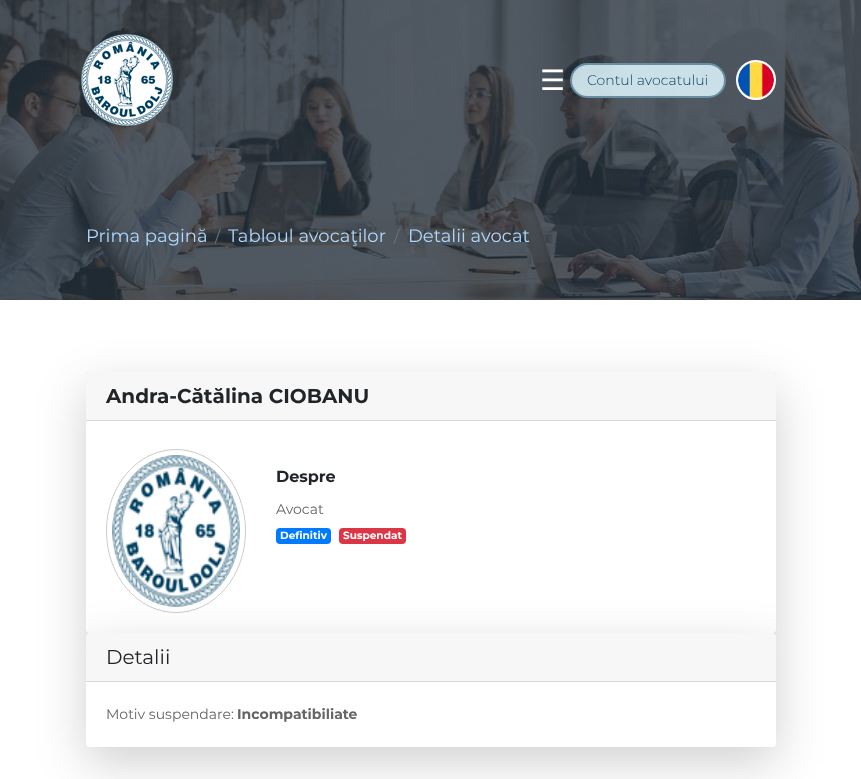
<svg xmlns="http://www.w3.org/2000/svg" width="861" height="779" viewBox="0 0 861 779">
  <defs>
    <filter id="blur1" x="-50%" y="-200%" width="200%" height="500%"><feGaussianBlur stdDeviation="24"/></filter>
  </defs>
  <rect width="100%" height="100%" fill="#ffffff"/>
  <image x="0" y="0" width="861" height="300" href="img3.png"/>
  <image x="81" y="34" width="92" height="92" href="img1.png"/>
  <text x="540" y="90" font-family="DejaVu Sans" font-size="28" fill="#ffffff">☰</text>
  <rect x="571" y="64" width="154" height="33" rx="16.5" fill="#e1f8ff" fill-opacity="0.85" stroke="#668fa3" stroke-width="2"/>
  <text x="587" y="85" font-family="Montserrat" font-size="14" font-weight="300" fill="#003b5d">Contul avocatului</text>
  <circle cx="756" cy="80" r="19" fill="#ffffff" stroke="#ffffff" stroke-width="2"/>
  <image x="738" y="62" width="36" height="36" href="img2.png"/>
  <text x="86" y="242" font-family="Montserrat" font-size="18" fill="#afd9ff">Prima pagină</text>
  <text x="215" y="242" font-family="Montserrat" font-size="16" fill="#6c757d">/</text>
  <text x="228" y="242" font-family="Montserrat" font-size="18" fill="#afd9ff">Tabloul avocaţilor</text>
  <text x="394" y="242" font-family="Montserrat" font-size="16" fill="#6c757d">/</text>
  <text x="408" y="242" font-family="Montserrat" font-size="18" fill="#afd9ff">Detalii avocat</text>
  <rect x="86" y="388" width="690" height="261" rx="4" fill="#000000" fill-opacity="0.18" filter="url(#blur1)"/>
  <rect x="86" y="372" width="690" height="261" rx="4" fill="#ffffff"/>
  <rect x="86" y="372" width="690" height="48" fill="#000000" fill-opacity="0.03"/>
  <rect x="86" y="420" width="690" height="1" fill="#d8d8d8"/>
  <text x="106" y="403" font-family="Montserrat" font-size="20" font-weight="bold" fill="#212529">Andra-Cătălina CIOBANU</text>
  <path d="M176 449.5C214.5 449.5 245.5 486 245.5 531C245.5 576 214.5 612.5 176 612.5C137.5 612.5 106.5 576 106.5 531C106.5 486 137.5 449.5 176 449.5Z" fill="none" stroke="#cccccc"/>
  <image x="112" y="455" width="128" height="152" href="img4.png"/>
  <text x="276" y="482" font-family="Montserrat" font-size="16" font-weight="bold" fill="#212529">Despre</text>
  <text x="276" y="514" font-family="Montserrat" font-size="14" fill="#656565">Avocat</text>
  <rect x="276" y="528" width="55" height="16" rx="4" fill="#007bff"/>
  <text x="280" y="539" font-family="Montserrat" font-size="10.5" font-weight="bold" fill="#ffffff">Definitiv</text>
  <rect x="339" y="528" width="67" height="16" rx="4" fill="#dc3545"/>
  <text x="343" y="539" font-family="Montserrat" font-size="10.5" font-weight="bold" fill="#ffffff">Suspendat</text>
  <rect x="86" y="649" width="690" height="114" rx="4" fill="#000000" fill-opacity="0.18" filter="url(#blur1)"/>
  <rect x="86" y="633" width="690" height="114" rx="4" fill="#ffffff"/>
  <rect x="86" y="633" width="690" height="48" fill="#000000" fill-opacity="0.03"/>
  <rect x="86" y="681" width="690" height="1" fill="#d8d8d8"/>
  <text x="106" y="664" font-family="Montserrat" font-size="20" fill="#212529">Detalii</text>
  <text x="106" y="719" font-family="Montserrat" font-size="14" fill="#656565">Motiv suspendare:</text>
  <text x="237" y="719" font-family="Montserrat" font-size="14" font-weight="bold" fill="#656565">Incompatibiliate</text>
</svg>
